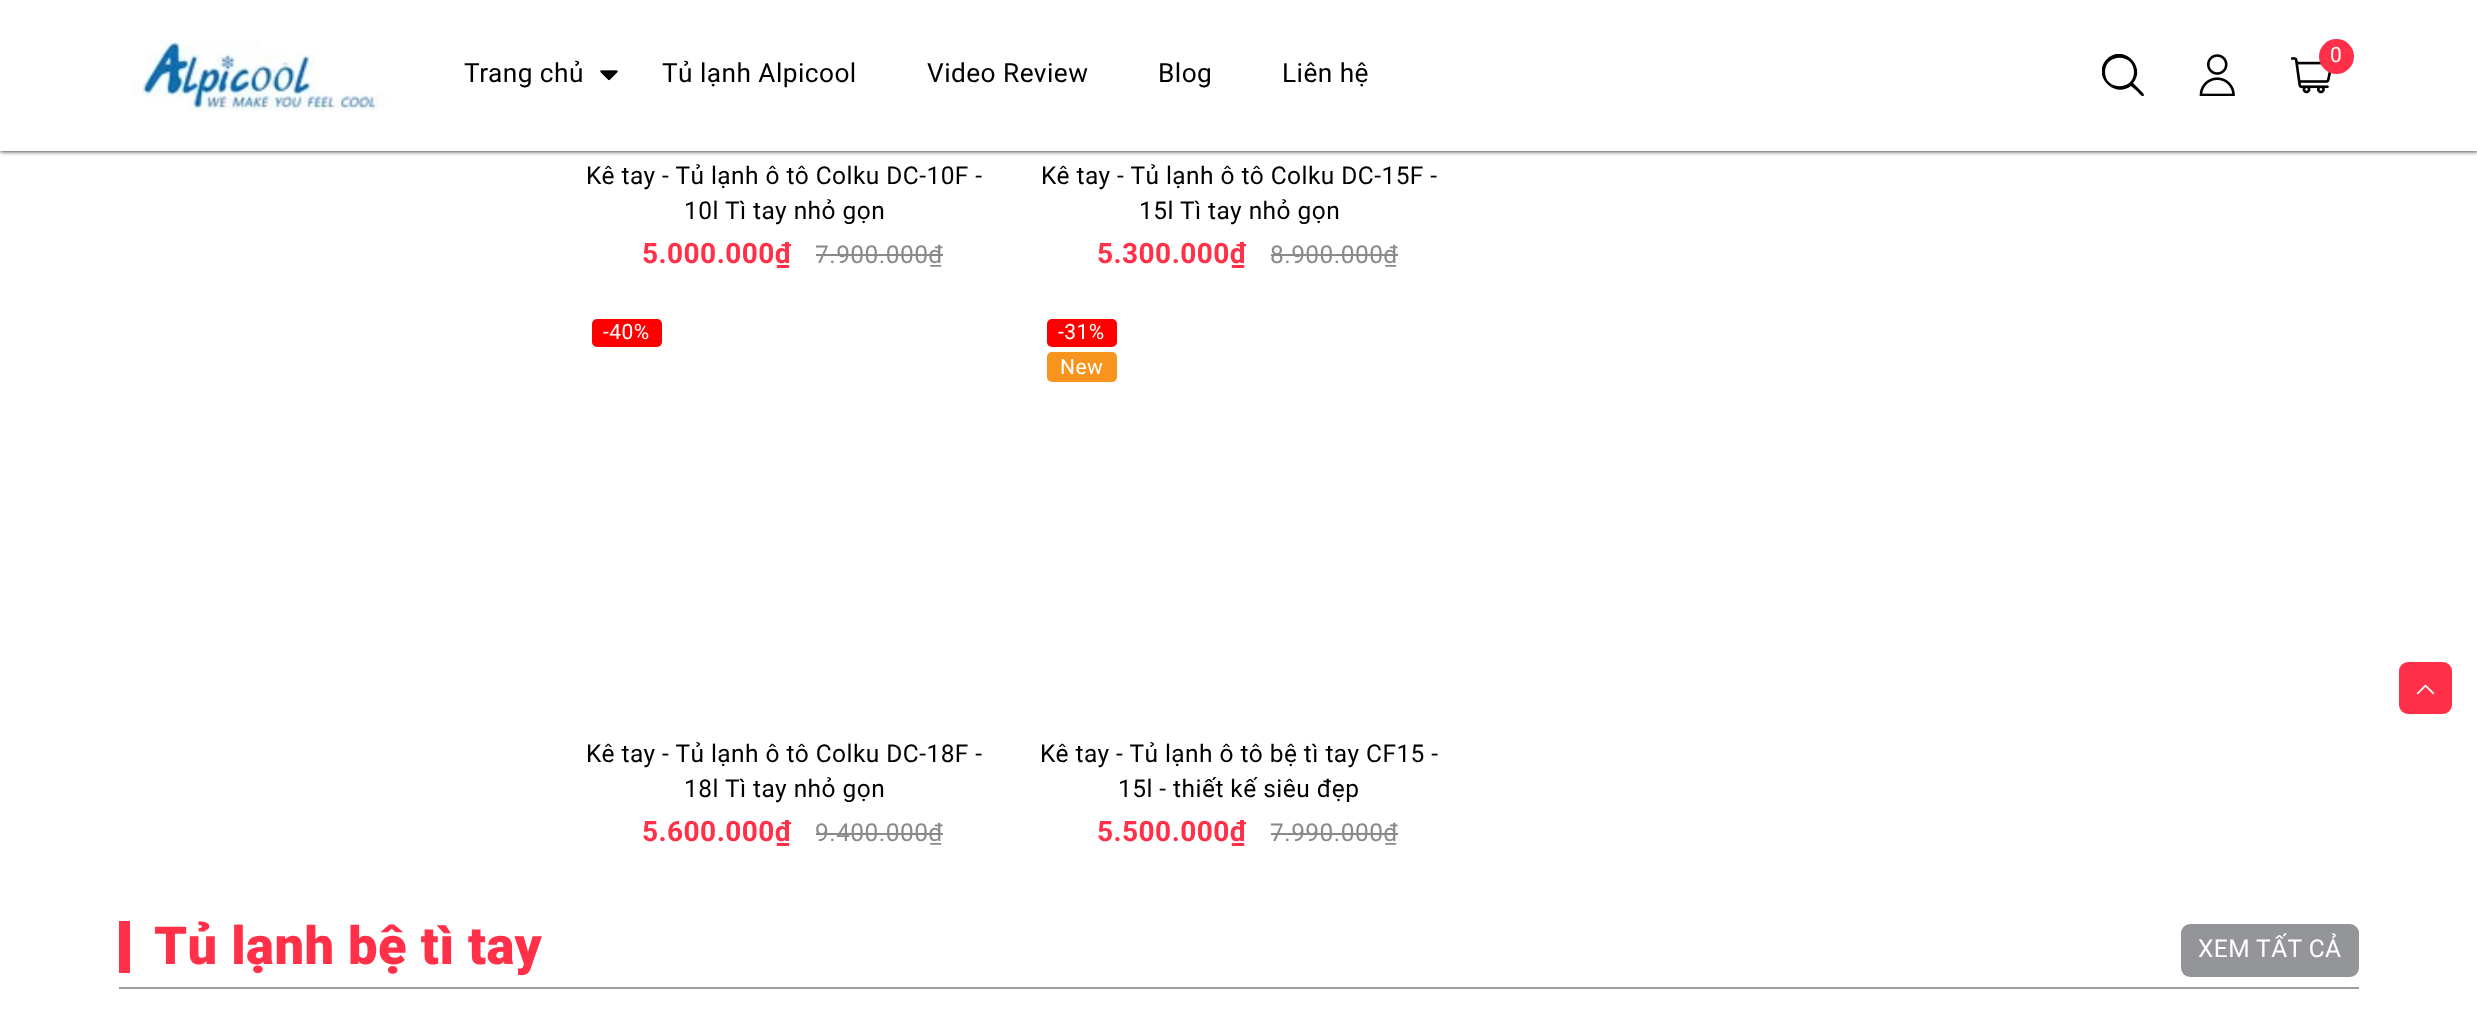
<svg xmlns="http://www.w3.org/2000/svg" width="2477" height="1020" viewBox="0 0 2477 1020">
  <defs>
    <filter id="blur1" x="-50%" y="-200%" width="200%" height="500%"><feGaussianBlur stdDeviation="2.5"/></filter>
    <clipPath id="clip1"><rect x="2102" y="54" width="42" height="42"/></clipPath>
  </defs>
  <rect width="100%" height="100%" fill="#ffffff"/>
  <rect x="0" y="0" width="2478" height="151" fill="#000000" filter="url(#blur1)"/>
  <rect x="0" y="0" width="2477" height="151" fill="#ffffff"/>
  <image x="133" y="40" width="252" height="71" href="img1.png"/>
  <g clip-path="url(#clip1)">
    <path d="M2143 93L2133 83C2147 67 2123 43 2107 59C2091 75 2114 99 2131 86L2138 92C2138 92 2143 99 2144 95ZM2105 72C2105 53 2134 53 2134 72C2134 91 2105 91 2105 72Z" fill="#000000"/>
  </g>
  <image x="2199" y="54" width="36" height="42" href="img2.png"/>
  <image x="2291" y="57" width="40" height="37" href="img3.png"/>
  <circle cx="2336.5" cy="56.5" r="17.5" fill="#ff3048"/>
  <text x="2330" y="62" font-family="Roboto" font-size="21" letter-spacing="0.45" fill="#ffffff">0</text>
  <image x="600" y="70" width="18" height="11" href="img4.png"/>
  <text x="464" y="82" font-family="Roboto" font-size="26.25" letter-spacing="0.45" fill="#000000">Trang chủ</text>
  <text x="662" y="82" font-family="Roboto" font-size="26.25" letter-spacing="0.45" fill="#000000">Tủ lạnh Alpicool</text>
  <text x="927" y="82" font-family="Roboto" font-size="26.25" letter-spacing="0.45" fill="#000000">Video Review</text>
  <text x="1158" y="82" font-family="Roboto" font-size="26.25" letter-spacing="0.45" fill="#000000">Blog</text>
  <text x="1282" y="82" font-family="Roboto" font-size="26.25" letter-spacing="0.45" fill="#000000">Liên hệ</text>
  <text x="586" y="184" font-family="Roboto" font-size="24.5" letter-spacing="0.45" fill="#000000">Kê tay - Tủ lạnh ô tô Colku DC-10F -</text>
  <text x="684" y="219" font-family="Roboto" font-size="24.5" letter-spacing="0.45" fill="#000000">10l Tì tay nhỏ gọn</text>
  <text x="642" y="263" font-family="Roboto" font-size="28" font-weight="bold" letter-spacing="0.45" fill="#ff3048">5.000.000₫</text>
  <text x="815" y="263" font-family="Roboto" font-size="24.5" letter-spacing="0.45" fill="#8a8a8a">7.900.000₫</text>
  <rect x="816" y="254" width="127" height="2" fill="#8a8a8a"/>
  <text x="1041" y="184" font-family="Roboto" font-size="24.5" letter-spacing="0.45" fill="#000000">Kê tay - Tủ lạnh ô tô Colku DC-15F -</text>
  <text x="1139" y="219" font-family="Roboto" font-size="24.5" letter-spacing="0.45" fill="#000000">15l Tì tay nhỏ gọn</text>
  <text x="1097" y="263" font-family="Roboto" font-size="28" font-weight="bold" letter-spacing="0.45" fill="#ff3048">5.300.000₫</text>
  <text x="1270" y="263" font-family="Roboto" font-size="24.5" letter-spacing="0.45" fill="#8a8a8a">8.900.000₫</text>
  <rect x="1271" y="254" width="127" height="2" fill="#8a8a8a"/>
  <rect x="592" y="319" width="70" height="28" rx="5" fill="#ff0000"/>
  <text x="603" y="339" font-family="Roboto" font-size="21" letter-spacing="0.45" fill="#ffffff">-40%</text>
  <text x="586" y="762" font-family="Roboto" font-size="24.5" letter-spacing="0.45" fill="#000000">Kê tay - Tủ lạnh ô tô Colku DC-18F -</text>
  <text x="684" y="797" font-family="Roboto" font-size="24.5" letter-spacing="0.45" fill="#000000">18l Tì tay nhỏ gọn</text>
  <text x="642" y="841" font-family="Roboto" font-size="28" font-weight="bold" letter-spacing="0.45" fill="#ff3048">5.600.000₫</text>
  <text x="815" y="841" font-family="Roboto" font-size="24.5" letter-spacing="0.45" fill="#8a8a8a">9.400.000₫</text>
  <rect x="816" y="833" width="127" height="2" fill="#8a8a8a"/>
  <rect x="1047" y="319" width="70" height="28" rx="5" fill="#ff0000"/>
  <text x="1058" y="339" font-family="Roboto" font-size="21" letter-spacing="0.45" fill="#ffffff">-31%</text>
  <rect x="1047" y="352" width="70" height="30" rx="5" fill="#f7941d"/>
  <text x="1060" y="374" font-family="Roboto" font-size="21" letter-spacing="0.45" fill="#ffffff">New</text>
  <text x="1040" y="762" font-family="Roboto" font-size="24.5" letter-spacing="0.45" fill="#000000">Kê tay - Tủ lạnh ô tô bệ tì tay CF15 -</text>
  <text x="1118" y="797" font-family="Roboto" font-size="24.5" letter-spacing="0.45" fill="#000000">15l - thiết kế siêu đẹp</text>
  <text x="1097" y="841" font-family="Roboto" font-size="28" font-weight="bold" letter-spacing="0.45" fill="#ff3048">5.500.000₫</text>
  <text x="1270" y="841" font-family="Roboto" font-size="24.5" letter-spacing="0.45" fill="#8a8a8a">7.990.000₫</text>
  <rect x="1271" y="833" width="127" height="2" fill="#8a8a8a"/>
  <rect x="2400" y="663" width="51" height="50" rx="8" fill="#ff3048" stroke="#ff3048" stroke-width="2"/>
  <image x="2417" y="684" width="17" height="11" href="img5.png"/>
  <rect x="119" y="987" width="2240" height="2" fill="#9d9d9d"/>
  <rect x="119" y="921" width="11" height="52" fill="#ff3048"/>
  <text x="154" y="964" font-family="Roboto" font-size="52.5" font-weight="900" letter-spacing="0.45" fill="#ff3048">Tủ lạnh bệ tì tay</text>
  <rect x="2181" y="924" width="178" height="53" rx="9" fill="#939598"/>
  <text x="2198" y="957" font-family="Roboto" font-size="24.5" letter-spacing="0.45" fill="#ffffff">XEM TẤT CẢ</text>
</svg>
